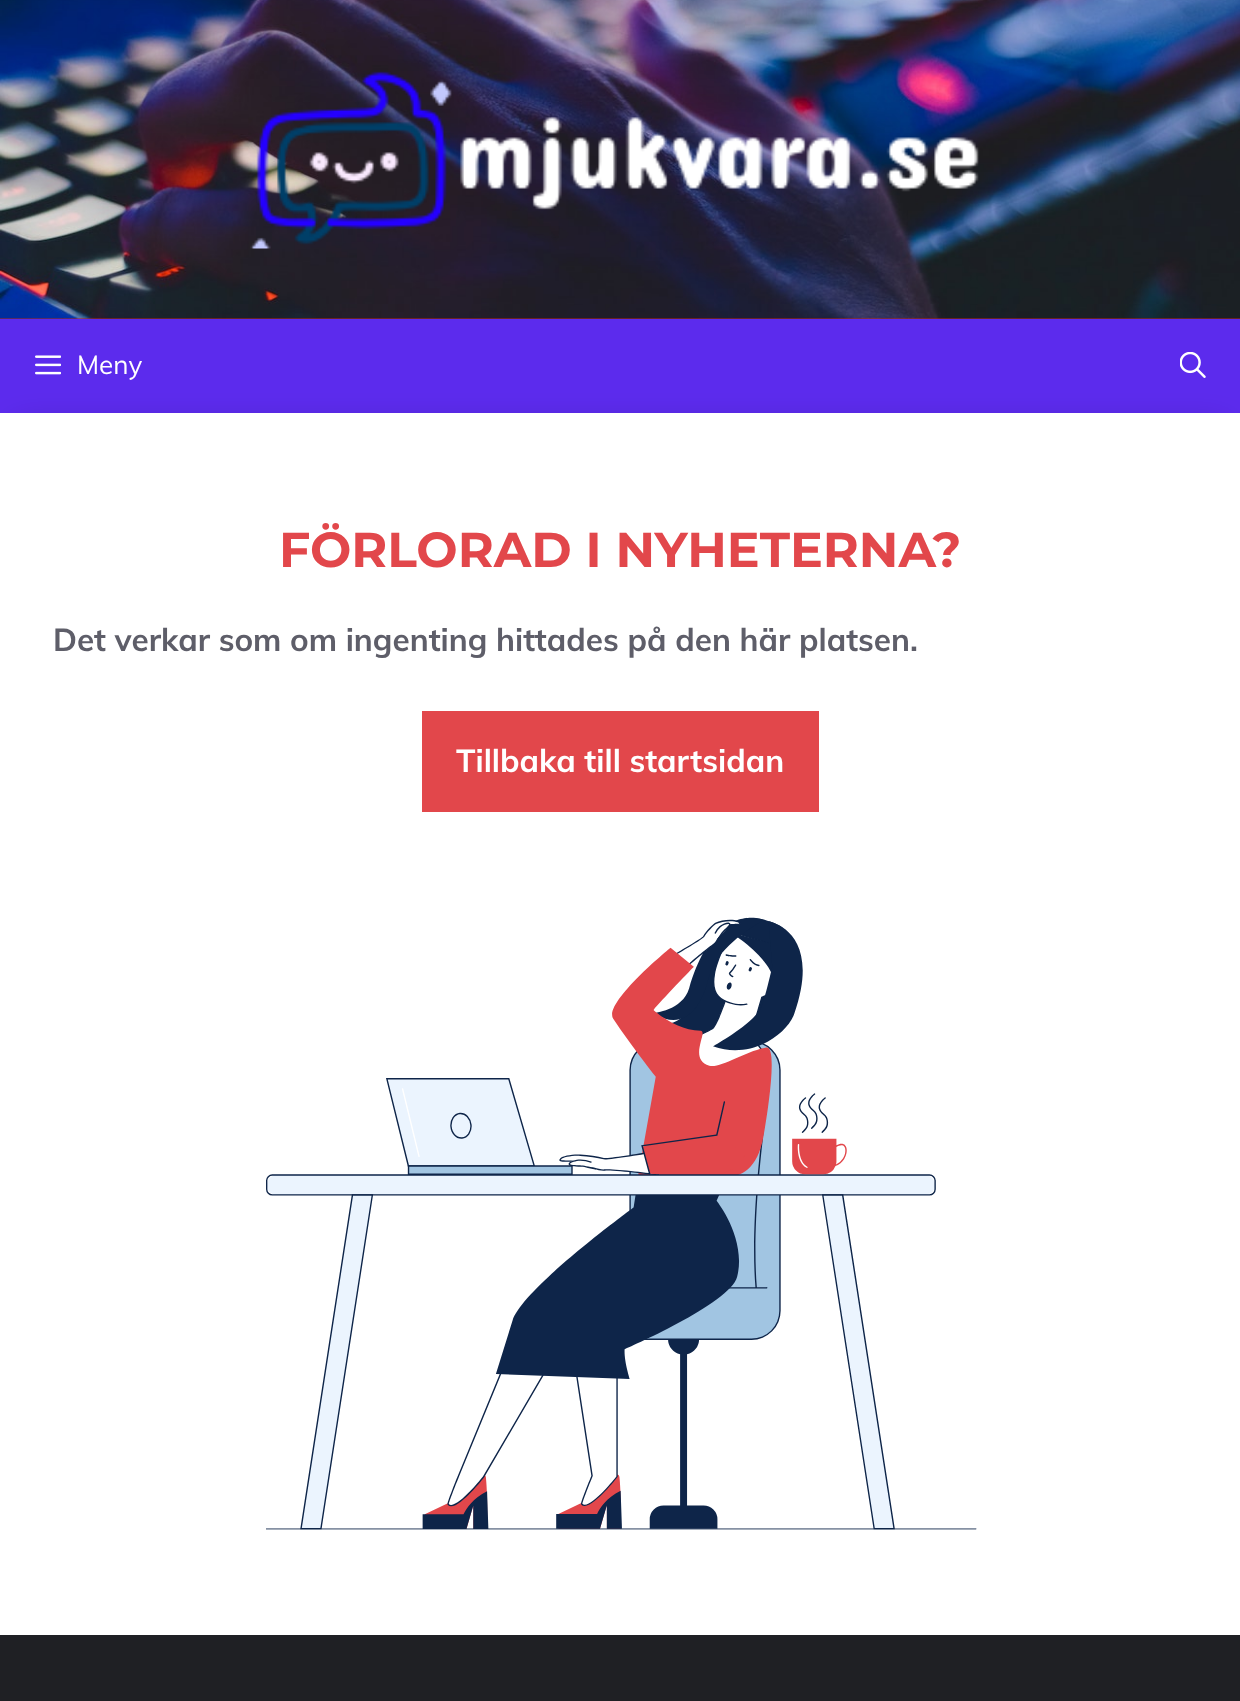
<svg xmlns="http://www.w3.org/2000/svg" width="1240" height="1701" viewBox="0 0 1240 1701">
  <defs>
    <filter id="blur1" x="-50%" y="-200%" width="200%" height="500%"><feGaussianBlur stdDeviation="17.5"/></filter>
  </defs>
  <rect width="100%" height="100%" fill="#5c2bed"/>
  <rect x="0" y="318" width="1240" height="1" fill="#b72727"/>
  <image x="0" y="0" width="1240" height="319" href="img1.png"/>
  <image x="250" y="71" width="729" height="178" href="img2.png"/>
  <image x="35" y="355" width="26" height="20" href="img3.png"/>
  <rect x="18" y="431" width="1205" height="1186" fill="#000000" fill-opacity="0.3" filter="url(#blur1)"/>
  <text x="77" y="374" font-family="Muli" font-size="26" fill="#ffffff">Meny</text>
  <image x="1180" y="352" width="26" height="26" href="img4.png"/>
  <rect x="0" y="413" width="1240" height="1222" fill="#ffffff"/>
  <text x="279" y="567" font-family="Montserrat" font-size="49" font-weight="bold" fill="#e2474b">FÖRLORAD I NYHETERNA?</text>
  <text x="53" y="651" font-family="Muli" font-size="31.5" font-weight="bold" fill="#5e5e69">Det verkar som om ingenting hittades på den här platsen.</text>
  <rect x="422" y="711" width="397" height="101" fill="#e2474b"/>
  <text x="456" y="772" font-family="Muli" font-size="31.5" font-weight="bold" fill="#ffffff">Tillbaka till startsidan</text>
  <image x="266" y="917" width="711" height="613" href="img5.png"/>
  <rect x="0" y="1635" width="1240" height="66" fill="#1f2024"/>
</svg>
